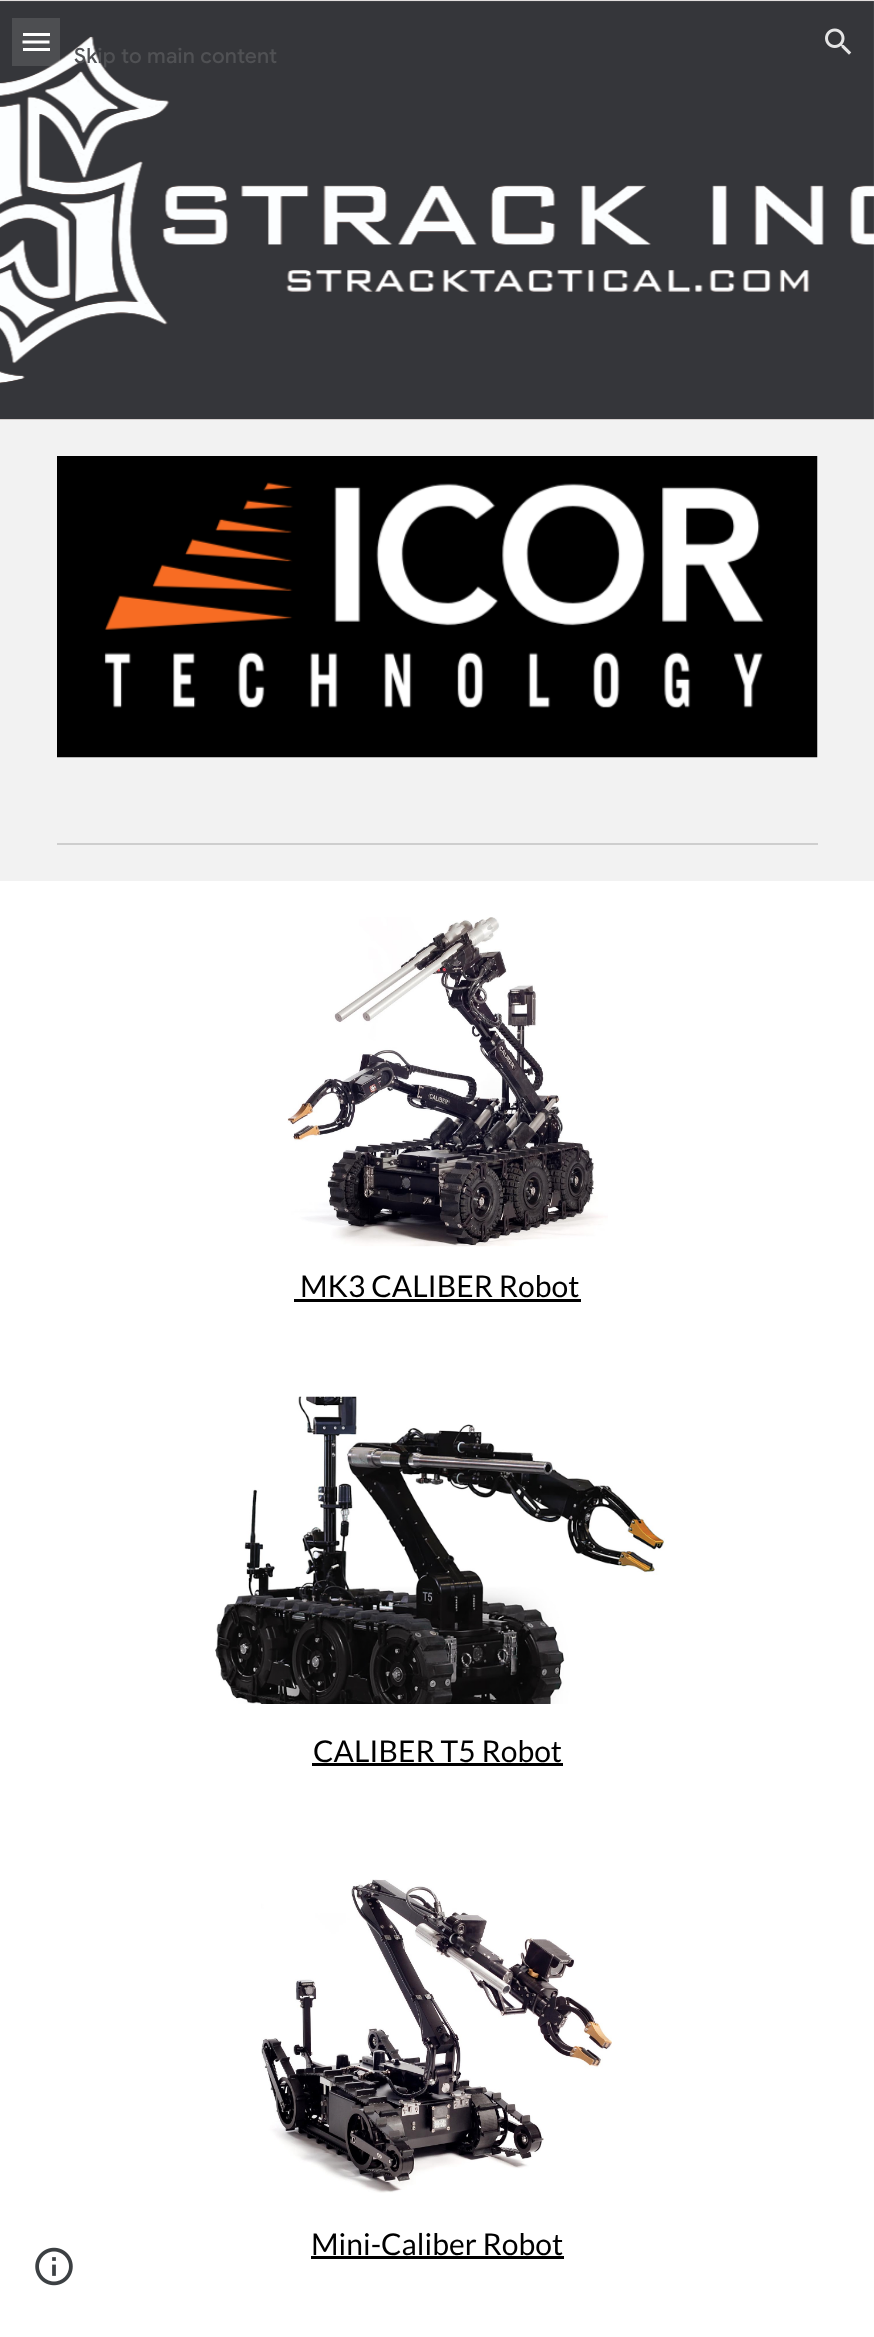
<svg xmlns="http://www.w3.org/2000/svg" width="874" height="2337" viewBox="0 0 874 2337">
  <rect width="100%" height="100%" fill="#ffffff"/>
  <image x="0" y="0" width="874" height="420" href="img2.png"/>
  <text x="74" y="63" font-family="Google Sans" font-size="21" font-weight="500" letter-spacing="0.25" fill="#505154">Skip to main content</text>
  <rect x="23" y="33" width="27" height="3" fill="#ffffff"/>
  <path d="M22.5 42H49.5" fill="none" stroke="#ffffff" stroke-width="3"/>
  <rect x="23" y="48" width="27" height="3" fill="#ffffff"/>
  <rect x="12" y="18" width="48" height="48" fill="#ffffff" fill-opacity="0.12"/>
  <image x="825" y="28" width="27" height="27" href="img1.png"/>
  <rect x="0" y="420" width="874" height="461" fill="#f2f2f2"/>
  <image x="57" y="456" width="761" height="302" href="img3.png"/>
  <rect x="57" y="843" width="761" height="2" fill="#cecece"/>
  <image x="287" y="917" width="321" height="330" href="img4.png"/>
  <text x="300" y="1297" font-family="Lato" font-size="30" fill="#000000">MK3 CALIBER Robot</text>
  <rect x="294" y="1299" width="287" height="3" fill="#000000"/>
  <image x="215" y="1396" width="450" height="308" href="img5.png"/>
  <text x="313" y="1762" font-family="Lato" font-size="30" fill="#000000">CALIBER T5 Robot</text>
  <rect x="312" y="1763" width="251" height="3" fill="#000000"/>
  <image x="261" y="1879" width="351" height="314" href="img6.png"/>
  <text x="311" y="2255" font-family="Lato" font-size="30" fill="#000000">Mini-Caliber Robot</text>
  <rect x="311" y="2256" width="253" height="3" fill="#000000"/>
  <image x="35" y="2247" width="38" height="39" href="img7.png"/>
</svg>
